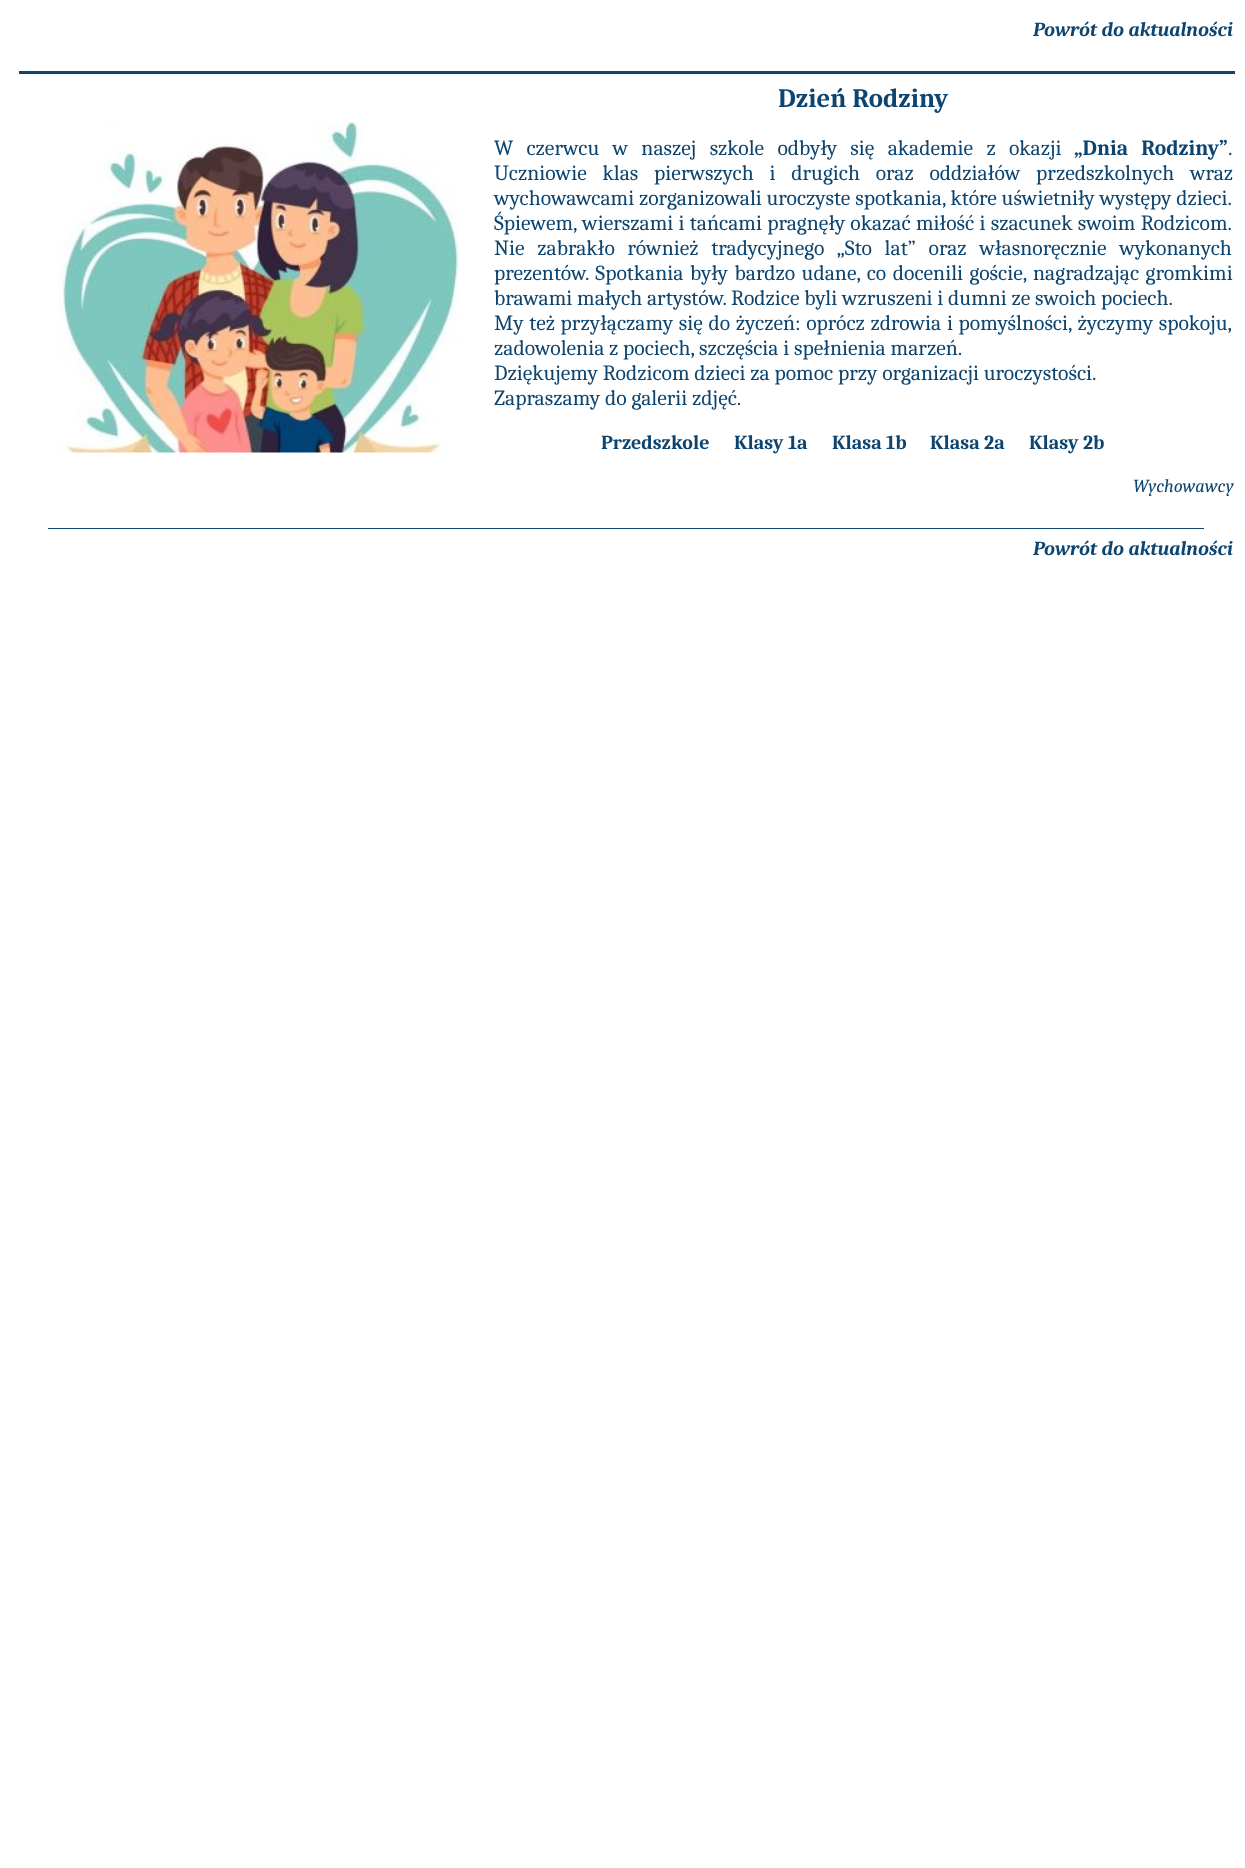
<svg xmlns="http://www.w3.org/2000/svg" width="1245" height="1868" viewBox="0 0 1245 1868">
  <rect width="100%" height="100%" fill="#ffffff"/>
  <text x="1033" y="36" font-family="Caladea" font-size="20" font-weight="bold" font-style="italic" fill="#0d4570">Powrót do aktualności</text>
  <rect x="19" y="71" width="1216" height="3" fill="#0d4570"/>
  <text x="778" y="107" font-family="Caladea" font-size="26.75" font-weight="bold" fill="#0d4570">Dzień Rodziny</text>
  <image x="57" y="121" width="402" height="332" href="img1.png"/>
  <text x="494" y="155" word-spacing="8.5" font-family="Caladea" font-size="21.65" fill="#0d4570">W czerwcu w naszej szkole odbyły się akademie z okazji</text>
  <text x="1074" y="155" word-spacing="8.5" font-family="Caladea" font-size="21.65" font-weight="bold" fill="#0d4570">„Dnia Rodziny”</text>
  <text x="1228" y="155" font-family="Caladea" font-size="21.65" fill="#0d4570">.</text>
  <text x="494" y="180" word-spacing="11" font-family="Caladea" font-size="21.65" fill="#0d4570">Uczniowie klas pierwszych i drugich oraz oddziałów przedszkolnych wraz</text>
  <text x="494" y="205" font-family="Caladea" font-size="21.65" fill="#0d4570">wychowawcami zorganizowali uroczyste spotkania, które uświetniły występy dzieci.</text>
  <text x="494" y="230" word-spacing="0.5" font-family="Caladea" font-size="21.65" fill="#0d4570">Śpiewem, wierszami i tańcami pragnęły okazać miłość i szacunek swoim Rodzicom.</text>
  <text x="494" y="255" word-spacing="8" font-family="Caladea" font-size="21.65" fill="#0d4570">Nie zabrakło również tradycyjnego „Sto lat” oraz własnoręcznie wykonanych</text>
  <text x="494" y="280" word-spacing="1.75" font-family="Caladea" font-size="21.65" fill="#0d4570">prezentów. Spotkania były bardzo udane, co docenili goście, nagradzając gromkimi</text>
  <text x="494" y="305" font-family="Caladea" font-size="21.65" fill="#0d4570">brawami małych artystów. Rodzice byli wzruszeni i dumni ze swoich pociech.</text>
  <text x="494" y="330" word-spacing="0.9" font-family="Caladea" font-size="21.65" fill="#0d4570">My też przyłączamy się do życzeń: oprócz zdrowia i pomyślności, życzymy spokoju,</text>
  <text x="494" y="355" font-family="Caladea" font-size="21.65" fill="#0d4570">zadowolenia z pociech, szczęścia i spełnienia marzeń.</text>
  <text x="494" y="380" font-family="Caladea" font-size="21.65" fill="#0d4570">Dziękujemy Rodzicom dzieci za pomoc przy organizacji uroczystości.</text>
  <text x="494" y="405" font-family="Caladea" font-size="21.65" fill="#0d4570">Zapraszamy do galerii zdjęć.</text>
  <text x="601" y="449" font-family="Caladea" font-size="20" font-weight="bold" fill="#0d4570">Przedszkole</text>
  <text x="734" y="449" font-family="Caladea" font-size="20" font-weight="bold" fill="#0d4570">Klasy 1a</text>
  <text x="832" y="449" font-family="Caladea" font-size="20" font-weight="bold" fill="#0d4570">Klasa 1b</text>
  <text x="930" y="449" font-family="Caladea" font-size="20" font-weight="bold" fill="#0d4570">Klasa 2a</text>
  <text x="1029" y="449" font-family="Caladea" font-size="20" font-weight="bold" fill="#0d4570">Klasy 2b</text>
  <text x="1133" y="492" font-family="Caladea" font-size="18.5" font-style="italic" fill="#0d4570">Wychowawcy</text>
  <rect x="48" y="528" width="1156" height="1" fill="#0d4570"/>
  <text x="1033" y="555" font-family="Caladea" font-size="20" font-weight="bold" font-style="italic" fill="#0d4570">Powrót do aktualności</text>
</svg>
